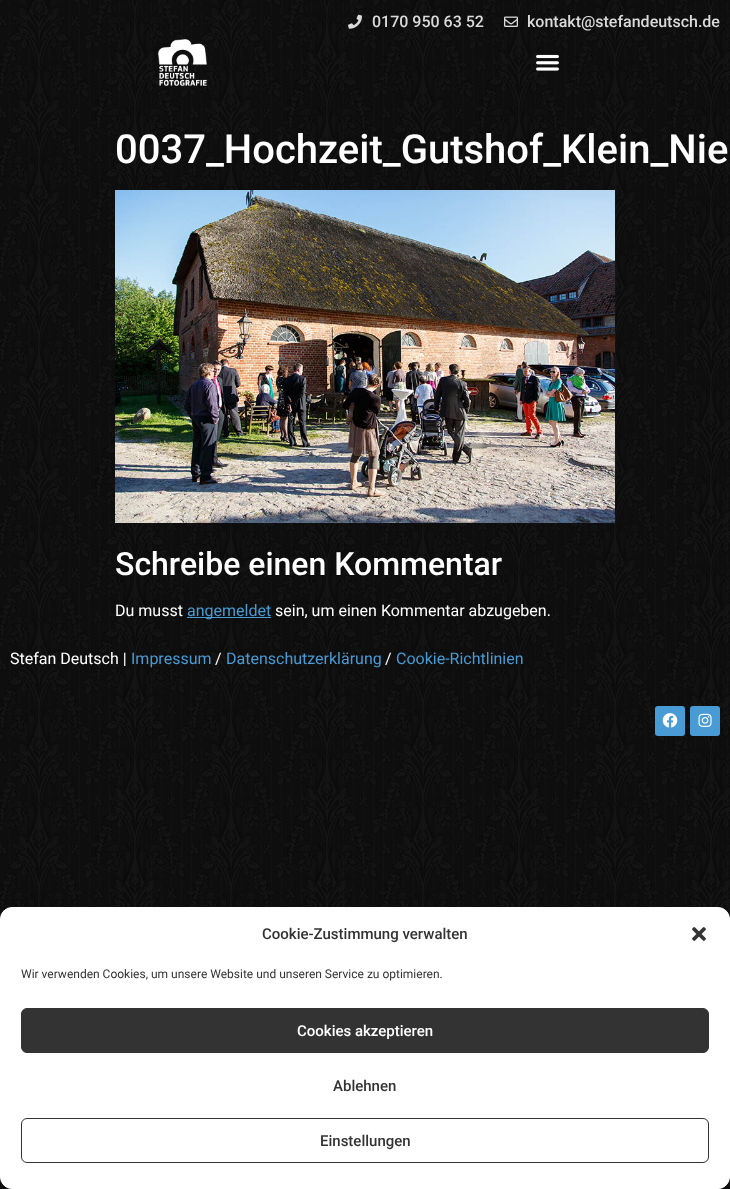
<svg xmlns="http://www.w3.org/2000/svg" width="730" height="1189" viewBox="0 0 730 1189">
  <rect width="100%" height="100%" fill="#ffffff"/>
  <image x="0" y="0" width="730" height="1189" href="img1.png"/>
  <image x="348" y="14" width="14" height="15" href="img2.png"/>
  <text x="372" y="27" font-family="Roboto" font-size="16" font-weight="500" fill="#dadada">0170 950 63 52</text>
  <image x="504" y="16" width="14" height="11" href="img3.png"/>
  <text x="527" y="27" font-family="Roboto" font-size="16" font-weight="500" fill="#dadada">kontakt@stefandeutsch.de</text>
  <image x="158" y="39" width="49" height="47" href="img4.png"/>
  <image x="536" y="54" width="23" height="17" href="img5.png"/>
  <text x="115" y="163" font-family="Roboto" font-size="40" font-weight="500" fill="#ffffff">0037_Hochzeit_Gutshof_Klein_Nie</text>
  <image x="115" y="190" width="500" height="333" href="img6.png"/>
  <text x="115" y="575" font-family="Roboto" font-size="32" font-weight="500" fill="#ffffff">Schreibe einen Kommentar</text>
  <text x="115" y="616" font-family="Roboto" font-size="16" fill="#ffffff">Du musst</text>
  <rect x="187" y="617" width="84" height="1" fill="#499bd5"/>
  <text x="187" y="616" font-family="Roboto" font-size="16" fill="#499bd5">angemeldet</text>
  <text x="275" y="616" font-family="Roboto" font-size="16" fill="#ffffff">sein, um einen Kommentar abzugeben.</text>
  <text x="10" y="664" font-family="Roboto" font-size="16" fill="#ffffff">Stefan Deutsch |</text>
  <text x="131" y="664" font-family="Roboto" font-size="16" fill="#499bd5">Impressum</text>
  <text x="215" y="664" font-family="Roboto" font-size="16" fill="#ffffff">/</text>
  <text x="226" y="664" font-family="Roboto" font-size="16" fill="#499bd5">Datenschutzerklärung</text>
  <text x="385" y="664" font-family="Roboto" font-size="16" fill="#ffffff">/</text>
  <text x="396" y="664" font-family="Roboto" font-size="16" fill="#499bd5">Cookie-Richtlinien</text>
  <rect x="655" y="706" width="30" height="30" rx="3" fill="#499bd5"/>
  <image x="662" y="713" width="16" height="15" href="img7.png"/>
  <rect x="690" y="706" width="30" height="30" rx="3" fill="#499bd5"/>
  <image x="698" y="713" width="14" height="14" href="img8.png"/>
  <rect x="0.5" y="907.5" width="729" height="281" rx="11.5" fill="#ffffff" stroke="#ffffff"/>
  <text x="262" y="939" font-family="Roboto" font-size="15" font-weight="500" fill="#333333">Cookie-Zustimmung verwalten</text>
  <image x="692" y="927" width="14" height="14" href="img9.png"/>
  <text x="21" y="978" font-family="Roboto" font-size="12" fill="#333333">Wir verwenden Cookies, um unsere Website und unseren Service zu optimieren.</text>
  <rect x="21.5" y="1008.5" width="687" height="44" rx="5.5" fill="#333333" stroke="#333333"/>
  <text x="297" y="1036" font-family="Roboto" font-size="15" font-weight="500" fill="#ffffff">Cookies akzeptieren</text>
  <text x="333" y="1091" font-family="Roboto" font-size="15" font-weight="500" fill="#333333">Ablehnen</text>
  <rect x="21.5" y="1118.5" width="687" height="44" rx="5.5" fill="none" stroke="#333333"/>
  <text x="320" y="1146" font-family="Roboto" font-size="15" font-weight="500" fill="#333333">Einstellungen</text>
</svg>
